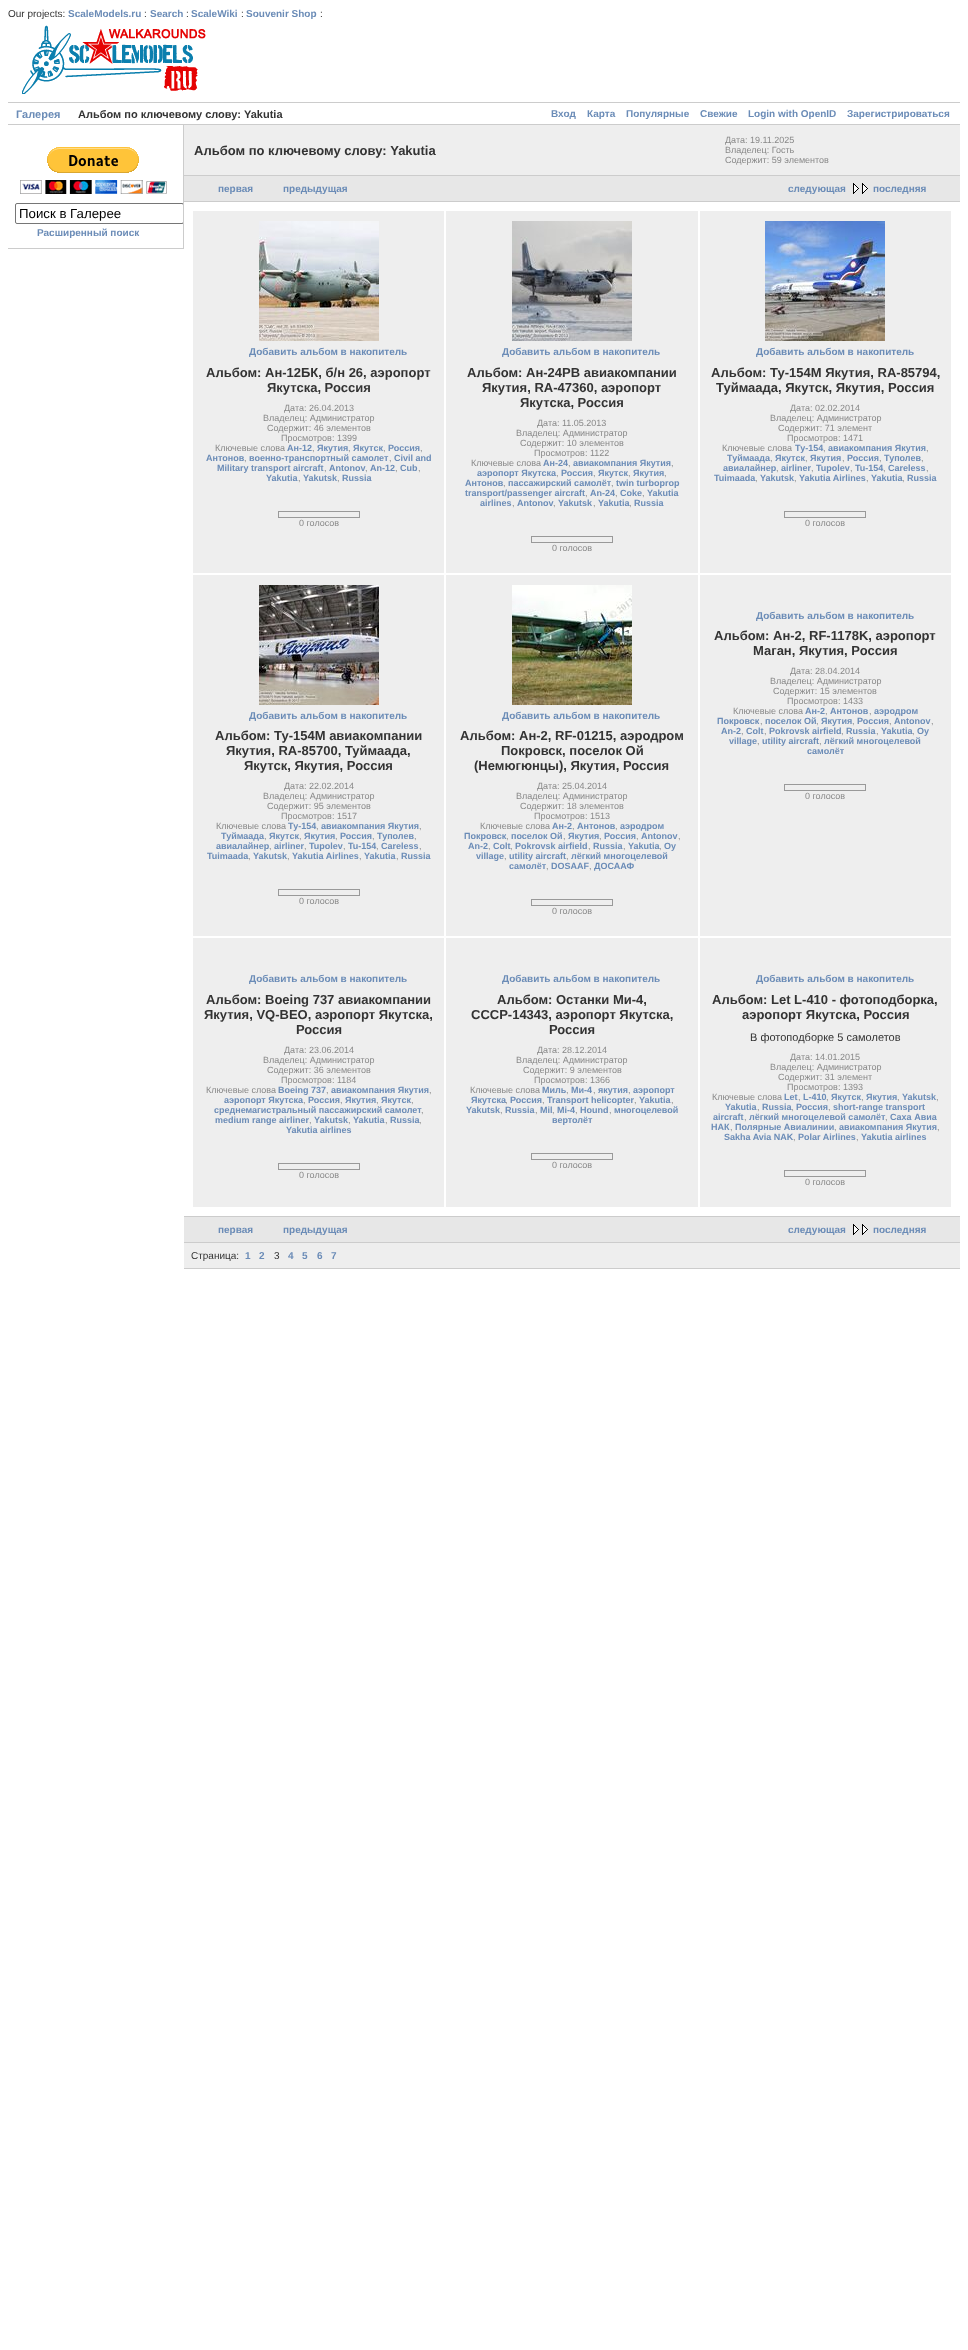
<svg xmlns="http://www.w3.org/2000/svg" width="968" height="2350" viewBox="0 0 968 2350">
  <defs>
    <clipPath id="clip1"><rect x="8" y="125" width="175" height="124"/></clipPath>
  </defs>
  <rect width="100%" height="100%" fill="#ffffff"/>
  <text x="8" y="17" font-family="Liberation Sans" font-size="10" fill="#333333">Our projects:</text>
  <text x="68" y="17" font-family="Liberation Sans" font-size="10" font-weight="bold" fill="#6b8cb7">ScaleModels.ru</text>
  <text x="144" y="17" font-family="Liberation Sans" font-size="10" fill="#333333">:</text>
  <text x="150" y="17" font-family="Liberation Sans" font-size="10" font-weight="bold" fill="#6b8cb7">Search</text>
  <text x="186" y="17" font-family="Liberation Sans" font-size="10" fill="#333333">:</text>
  <text x="191" y="17" font-family="Liberation Sans" font-size="10" font-weight="bold" fill="#6b8cb7">ScaleWiki</text>
  <text x="241" y="17" font-family="Liberation Sans" font-size="10" fill="#333333">:</text>
  <text x="246" y="17" font-family="Liberation Sans" font-size="10" font-weight="bold" fill="#6b8cb7">Souvenir Shop</text>
  <text x="320" y="17" font-family="Liberation Sans" font-size="10" fill="#333333">:</text>
  <image x="22" y="25" width="184" height="69" href="img1.png"/>
  <rect x="8" y="102" width="952" height="1" fill="#cccccc"/>
  <rect x="8" y="124" width="952" height="1" fill="#cccccc"/>
  <text x="16" y="118" font-family="Liberation Sans" font-size="11" font-weight="bold" fill="#6b8cb7">Галерея</text>
  <text x="78" y="118" font-family="Liberation Sans" font-size="11" font-weight="bold" fill="#333333">Альбом по ключевому слову: Yakutia</text>
  <text x="551" y="117" font-family="Liberation Sans" font-size="10" font-weight="bold" fill="#6b8cb7">Вход</text>
  <text x="587" y="117" font-family="Liberation Sans" font-size="10" font-weight="bold" fill="#6b8cb7">Карта</text>
  <text x="626" y="117" font-family="Liberation Sans" font-size="10" font-weight="bold" fill="#6b8cb7">Популярные</text>
  <text x="700" y="117" font-family="Liberation Sans" font-size="10" font-weight="bold" fill="#6b8cb7">Свежие</text>
  <text x="748" y="117" font-family="Liberation Sans" font-size="10" font-weight="bold" fill="#6b8cb7">Login with OpenID</text>
  <text x="847" y="117" font-family="Liberation Sans" font-size="10" font-weight="bold" fill="#6b8cb7">Зарегистрироваться</text>
  <rect x="183" y="125" width="1" height="124" fill="#cccccc"/>
  <image x="20" y="147" width="147" height="47" href="img2.png"/>
  <rect x="8" y="248" width="175" height="1" fill="#cccccc"/>
  <g clip-path="url(#clip1)">
    <rect x="15.5" y="203.5" width="168" height="20" rx="1.5" fill="none" stroke="#767676"/>
  </g>
  <text x="19" y="218" font-family="Liberation Sans" font-size="13.25" fill="#000000">Поиск в Галерее</text>
  <text x="37" y="236" font-family="Liberation Sans" font-size="10" font-weight="bold" fill="#6b8cb7">Расширенный поиск</text>
  <rect x="184" y="125" width="776" height="50" fill="#eeeeee"/>
  <rect x="184" y="175" width="776" height="1" fill="#cccccc"/>
  <text x="194" y="155" font-family="Liberation Sans" font-size="13" font-weight="bold" fill="#333333">Альбом по ключевому слову: Yakutia</text>
  <text x="725" y="143" font-family="Liberation Sans" font-size="9" fill="#888888">Дата: 19.11.2025</text>
  <text x="725" y="153" font-family="Liberation Sans" font-size="9" fill="#888888">Владелец: Гость</text>
  <text x="725" y="163" font-family="Liberation Sans" font-size="9" fill="#888888">Содержит: 59 элементов</text>
  <rect x="184" y="176" width="776" height="25" fill="#e7e7e7"/>
  <rect x="184" y="201" width="776" height="1" fill="#cccccc"/>
  <text x="218" y="192" font-family="Liberation Sans" font-size="10" font-weight="bold" fill="#6b8cb7">первая</text>
  <text x="283" y="192" font-family="Liberation Sans" font-size="10" font-weight="bold" fill="#6b8cb7">предыдущая</text>
  <text x="788" y="192" font-family="Liberation Sans" font-size="10" font-weight="bold" fill="#6b8cb7">следующая</text>
  <image x="853" y="183" width="15" height="11" href="img3.png"/>
  <text x="873" y="192" font-family="Liberation Sans" font-size="10" font-weight="bold" fill="#6b8cb7">последняя</text>
  <rect x="184" y="1216" width="776" height="1" fill="#cccccc"/>
  <rect x="193" y="211" width="251" height="362" fill="#eeeeee"/>
  <image x="259" y="221" width="120" height="120" href="img4.png"/>
  <text x="249" y="355" font-family="Liberation Sans" font-size="10" font-weight="bold" fill="#6b8cb7">Добавить альбом в накопитель</text>
  <text x="206" y="377" font-family="Liberation Sans" font-size="13" font-weight="bold" fill="#333333">Альбом: Ан-12БК, б/н 26, аэропорт</text>
  <text x="267" y="392" font-family="Liberation Sans" font-size="13" font-weight="bold" fill="#333333">Якутска, Россия</text>
  <text x="284" y="411" font-family="Liberation Sans" font-size="9" fill="#888888">Дата: 26.04.2013</text>
  <text x="263" y="421" font-family="Liberation Sans" font-size="9" fill="#888888">Владелец: Администратор</text>
  <text x="267" y="431" font-family="Liberation Sans" font-size="9" fill="#888888">Содержит: 46 элементов</text>
  <text x="281" y="441" font-family="Liberation Sans" font-size="9" fill="#888888">Просмотров: 1399</text>
  <text x="215" y="451" font-family="Liberation Sans" font-size="9" fill="#888888">Ключевые слова</text>
  <text x="287" y="451" font-family="Liberation Sans" font-size="9" font-weight="bold" fill="#6b8cb7">Ан-12</text>
  <text x="312" y="451" font-family="Liberation Sans" font-size="9" fill="#888888">,</text>
  <text x="317" y="451" font-family="Liberation Sans" font-size="9" font-weight="bold" fill="#6b8cb7">Якутия</text>
  <text x="348" y="451" font-family="Liberation Sans" font-size="9" fill="#888888">,</text>
  <text x="353" y="451" font-family="Liberation Sans" font-size="9" font-weight="bold" fill="#6b8cb7">Якутск</text>
  <text x="383" y="451" font-family="Liberation Sans" font-size="9" fill="#888888">,</text>
  <text x="388" y="451" font-family="Liberation Sans" font-size="9" font-weight="bold" fill="#6b8cb7">Россия</text>
  <text x="420" y="451" font-family="Liberation Sans" font-size="9" fill="#888888">,</text>
  <text x="206" y="461" font-family="Liberation Sans" font-size="9" font-weight="bold" fill="#6b8cb7">Антонов</text>
  <text x="244" y="461" font-family="Liberation Sans" font-size="9" fill="#888888">,</text>
  <text x="249" y="461" font-family="Liberation Sans" font-size="9" font-weight="bold" fill="#6b8cb7">военно-транспортный самолет</text>
  <text x="389" y="461" font-family="Liberation Sans" font-size="9" fill="#888888">,</text>
  <text x="394" y="461" font-family="Liberation Sans" font-size="9" font-weight="bold" fill="#6b8cb7">Civil and</text>
  <text x="217" y="471" font-family="Liberation Sans" font-size="9" font-weight="bold" fill="#6b8cb7">Military transport aircraft</text>
  <text x="324" y="471" font-family="Liberation Sans" font-size="9" fill="#888888">,</text>
  <text x="329" y="471" font-family="Liberation Sans" font-size="9" font-weight="bold" fill="#6b8cb7">Antonov</text>
  <text x="370" y="471" font-family="Liberation Sans" font-size="9" font-weight="bold" fill="#6b8cb7">An-12</text>
  <text x="400" y="471" font-family="Liberation Sans" font-size="9" font-weight="bold" fill="#6b8cb7">Cub</text>
  <text x="365" y="471" font-family="Liberation Sans" font-size="9" fill="#888888">,</text>
  <text x="395" y="471" font-family="Liberation Sans" font-size="9" fill="#888888">,</text>
  <text x="418" y="471" font-family="Liberation Sans" font-size="9" fill="#888888">,</text>
  <text x="266" y="481" font-family="Liberation Sans" font-size="9" font-weight="bold" fill="#6b8cb7">Yakutia</text>
  <text x="298" y="481" font-family="Liberation Sans" font-size="9" fill="#888888">,</text>
  <text x="303" y="481" font-family="Liberation Sans" font-size="9" font-weight="bold" fill="#6b8cb7">Yakutsk</text>
  <text x="337" y="481" font-family="Liberation Sans" font-size="9" fill="#888888">,</text>
  <text x="342" y="481" font-family="Liberation Sans" font-size="9" font-weight="bold" fill="#6b8cb7">Russia</text>
  <rect x="278.5" y="511.5" width="81" height="6" fill="none" stroke="#999999"/>
  <text x="299" y="526" font-family="Liberation Sans" font-size="9" fill="#888888">0 голосов</text>
  <rect x="446" y="211" width="252" height="362" fill="#eeeeee"/>
  <image x="512" y="221" width="120" height="120" href="img5.png"/>
  <text x="502" y="355" font-family="Liberation Sans" font-size="10" font-weight="bold" fill="#6b8cb7">Добавить альбом в накопитель</text>
  <text x="467" y="377" font-family="Liberation Sans" font-size="13" font-weight="bold" fill="#333333">Альбом: Ан-24РВ авиакомпании</text>
  <text x="482" y="392" font-family="Liberation Sans" font-size="13" font-weight="bold" fill="#333333">Якутия, RA-47360, аэропорт</text>
  <text x="520" y="407" font-family="Liberation Sans" font-size="13" font-weight="bold" fill="#333333">Якутска, Россия</text>
  <text x="537" y="426" font-family="Liberation Sans" font-size="9" fill="#888888">Дата: 11.05.2013</text>
  <text x="516" y="436" font-family="Liberation Sans" font-size="9" fill="#888888">Владелец: Администратор</text>
  <text x="520" y="446" font-family="Liberation Sans" font-size="9" fill="#888888">Содержит: 10 элементов</text>
  <text x="534" y="456" font-family="Liberation Sans" font-size="9" fill="#888888">Просмотров: 1122</text>
  <text x="471" y="466" font-family="Liberation Sans" font-size="9" fill="#888888">Ключевые слова</text>
  <text x="543" y="466" font-family="Liberation Sans" font-size="9" font-weight="bold" fill="#6b8cb7">Ан-24</text>
  <text x="568" y="466" font-family="Liberation Sans" font-size="9" fill="#888888">,</text>
  <text x="573" y="466" font-family="Liberation Sans" font-size="9" font-weight="bold" fill="#6b8cb7">авиакомпания Якутия</text>
  <text x="671" y="466" font-family="Liberation Sans" font-size="9" fill="#888888">,</text>
  <text x="477" y="476" font-family="Liberation Sans" font-size="9" font-weight="bold" fill="#6b8cb7">аэропорт Якутска</text>
  <text x="556" y="476" font-family="Liberation Sans" font-size="9" fill="#888888">,</text>
  <text x="561" y="476" font-family="Liberation Sans" font-size="9" font-weight="bold" fill="#6b8cb7">Россия</text>
  <text x="593" y="476" font-family="Liberation Sans" font-size="9" fill="#888888">,</text>
  <text x="598" y="476" font-family="Liberation Sans" font-size="9" font-weight="bold" fill="#6b8cb7">Якутск</text>
  <text x="633" y="476" font-family="Liberation Sans" font-size="9" font-weight="bold" fill="#6b8cb7">Якутия</text>
  <text x="628" y="476" font-family="Liberation Sans" font-size="9" fill="#888888">,</text>
  <text x="664" y="476" font-family="Liberation Sans" font-size="9" fill="#888888">,</text>
  <text x="465" y="486" font-family="Liberation Sans" font-size="9" font-weight="bold" fill="#6b8cb7">Антонов</text>
  <text x="503" y="486" font-family="Liberation Sans" font-size="9" fill="#888888">,</text>
  <text x="508" y="486" font-family="Liberation Sans" font-size="9" font-weight="bold" fill="#6b8cb7">пассажирский самолёт</text>
  <text x="611" y="486" font-family="Liberation Sans" font-size="9" fill="#888888">,</text>
  <text x="616" y="486" font-family="Liberation Sans" font-size="9" font-weight="bold" fill="#6b8cb7">twin turboprop</text>
  <text x="465" y="496" font-family="Liberation Sans" font-size="9" font-weight="bold" fill="#6b8cb7">transport/passenger aircraft</text>
  <text x="585" y="496" font-family="Liberation Sans" font-size="9" fill="#888888">,</text>
  <text x="590" y="496" font-family="Liberation Sans" font-size="9" font-weight="bold" fill="#6b8cb7">An-24</text>
  <text x="615" y="496" font-family="Liberation Sans" font-size="9" fill="#888888">,</text>
  <text x="620" y="496" font-family="Liberation Sans" font-size="9" font-weight="bold" fill="#6b8cb7">Coke</text>
  <text x="642" y="496" font-family="Liberation Sans" font-size="9" fill="#888888">,</text>
  <text x="647" y="496" font-family="Liberation Sans" font-size="9" font-weight="bold" fill="#6b8cb7">Yakutia</text>
  <text x="480" y="506" font-family="Liberation Sans" font-size="9" font-weight="bold" fill="#6b8cb7">airlines</text>
  <text x="512" y="506" font-family="Liberation Sans" font-size="9" fill="#888888">,</text>
  <text x="517" y="506" font-family="Liberation Sans" font-size="9" font-weight="bold" fill="#6b8cb7">Antonov</text>
  <text x="553" y="506" font-family="Liberation Sans" font-size="9" fill="#888888">,</text>
  <text x="558" y="506" font-family="Liberation Sans" font-size="9" font-weight="bold" fill="#6b8cb7">Yakutsk</text>
  <text x="593" y="506" font-family="Liberation Sans" font-size="9" fill="#888888">,</text>
  <text x="598" y="506" font-family="Liberation Sans" font-size="9" font-weight="bold" fill="#6b8cb7">Yakutia</text>
  <text x="634" y="506" font-family="Liberation Sans" font-size="9" font-weight="bold" fill="#6b8cb7">Russia</text>
  <text x="629" y="506" font-family="Liberation Sans" font-size="9" fill="#888888">,</text>
  <rect x="531.5" y="536.5" width="81" height="6" fill="none" stroke="#999999"/>
  <text x="552" y="551" font-family="Liberation Sans" font-size="9" fill="#888888">0 голосов</text>
  <rect x="700" y="211" width="251" height="362" fill="#eeeeee"/>
  <image x="765" y="221" width="120" height="120" href="img6.png"/>
  <text x="756" y="355" font-family="Liberation Sans" font-size="10" font-weight="bold" fill="#6b8cb7">Добавить альбом в накопитель</text>
  <text x="711" y="377" font-family="Liberation Sans" font-size="13" font-weight="bold" fill="#333333">Альбом: Ту-154М Якутия, RA-85794,</text>
  <text x="716" y="392" font-family="Liberation Sans" font-size="13" font-weight="bold" fill="#333333">Туймаада, Якутск, Якутия, Россия</text>
  <text x="790" y="411" font-family="Liberation Sans" font-size="9" fill="#888888">Дата: 02.02.2014</text>
  <text x="770" y="421" font-family="Liberation Sans" font-size="9" fill="#888888">Владелец: Администратор</text>
  <text x="778" y="431" font-family="Liberation Sans" font-size="9" fill="#888888">Содержит: 71 элемент</text>
  <text x="787" y="441" font-family="Liberation Sans" font-size="9" fill="#888888">Просмотров: 1471</text>
  <text x="722" y="451" font-family="Liberation Sans" font-size="9" fill="#888888">Ключевые слова</text>
  <text x="795" y="451" font-family="Liberation Sans" font-size="9" font-weight="bold" fill="#6b8cb7">Ту-154</text>
  <text x="823" y="451" font-family="Liberation Sans" font-size="9" fill="#888888">,</text>
  <text x="828" y="451" font-family="Liberation Sans" font-size="9" font-weight="bold" fill="#6b8cb7">авиакомпания Якутия</text>
  <text x="926" y="451" font-family="Liberation Sans" font-size="9" fill="#888888">,</text>
  <text x="727" y="461" font-family="Liberation Sans" font-size="9" font-weight="bold" fill="#6b8cb7">Туймаада</text>
  <text x="770" y="461" font-family="Liberation Sans" font-size="9" fill="#888888">,</text>
  <text x="775" y="461" font-family="Liberation Sans" font-size="9" font-weight="bold" fill="#6b8cb7">Якутск</text>
  <text x="805" y="461" font-family="Liberation Sans" font-size="9" fill="#888888">,</text>
  <text x="810" y="461" font-family="Liberation Sans" font-size="9" font-weight="bold" fill="#6b8cb7">Якутия</text>
  <text x="842" y="461" font-family="Liberation Sans" font-size="9" fill="#888888">,</text>
  <text x="847" y="461" font-family="Liberation Sans" font-size="9" font-weight="bold" fill="#6b8cb7">Россия</text>
  <text x="879" y="461" font-family="Liberation Sans" font-size="9" fill="#888888">,</text>
  <text x="884" y="461" font-family="Liberation Sans" font-size="9" font-weight="bold" fill="#6b8cb7">Туполев</text>
  <text x="921" y="461" font-family="Liberation Sans" font-size="9" fill="#888888">,</text>
  <text x="723" y="471" font-family="Liberation Sans" font-size="9" font-weight="bold" fill="#6b8cb7">авиалайнер</text>
  <text x="776" y="471" font-family="Liberation Sans" font-size="9" fill="#888888">,</text>
  <text x="781" y="471" font-family="Liberation Sans" font-size="9" font-weight="bold" fill="#6b8cb7">airliner</text>
  <text x="811" y="471" font-family="Liberation Sans" font-size="9" fill="#888888">,</text>
  <text x="816" y="471" font-family="Liberation Sans" font-size="9" font-weight="bold" fill="#6b8cb7">Tupolev</text>
  <text x="850" y="471" font-family="Liberation Sans" font-size="9" fill="#888888">,</text>
  <text x="855" y="471" font-family="Liberation Sans" font-size="9" font-weight="bold" fill="#6b8cb7">Tu-154</text>
  <text x="888" y="471" font-family="Liberation Sans" font-size="9" font-weight="bold" fill="#6b8cb7">Careless</text>
  <text x="883" y="471" font-family="Liberation Sans" font-size="9" fill="#888888">,</text>
  <text x="926" y="471" font-family="Liberation Sans" font-size="9" fill="#888888">,</text>
  <text x="714" y="481" font-family="Liberation Sans" font-size="9" font-weight="bold" fill="#6b8cb7">Tuimaada</text>
  <text x="760" y="481" font-family="Liberation Sans" font-size="9" font-weight="bold" fill="#6b8cb7">Yakutsk</text>
  <text x="799" y="481" font-family="Liberation Sans" font-size="9" font-weight="bold" fill="#6b8cb7">Yakutia Airlines</text>
  <text x="871" y="481" font-family="Liberation Sans" font-size="9" font-weight="bold" fill="#6b8cb7">Yakutia</text>
  <text x="907" y="481" font-family="Liberation Sans" font-size="9" font-weight="bold" fill="#6b8cb7">Russia</text>
  <text x="755" y="481" font-family="Liberation Sans" font-size="9" fill="#888888">,</text>
  <text x="794" y="481" font-family="Liberation Sans" font-size="9" fill="#888888">,</text>
  <text x="866" y="481" font-family="Liberation Sans" font-size="9" fill="#888888">,</text>
  <text x="902" y="481" font-family="Liberation Sans" font-size="9" fill="#888888">,</text>
  <rect x="784.5" y="511.5" width="81" height="6" fill="none" stroke="#999999"/>
  <text x="805" y="526" font-family="Liberation Sans" font-size="9" fill="#888888">0 голосов</text>
  <rect x="193" y="575" width="251" height="361" fill="#eeeeee"/>
  <image x="259" y="585" width="120" height="120" href="img7.png"/>
  <text x="249" y="719" font-family="Liberation Sans" font-size="10" font-weight="bold" fill="#6b8cb7">Добавить альбом в накопитель</text>
  <text x="215" y="740" font-family="Liberation Sans" font-size="13" font-weight="bold" fill="#333333">Альбом: Ту-154М авиакомпании</text>
  <text x="226" y="755" font-family="Liberation Sans" font-size="13" font-weight="bold" fill="#333333">Якутия, RA-85700, Туймаада,</text>
  <text x="244" y="770" font-family="Liberation Sans" font-size="13" font-weight="bold" fill="#333333">Якутск, Якутия, Россия</text>
  <text x="284" y="789" font-family="Liberation Sans" font-size="9" fill="#888888">Дата: 22.02.2014</text>
  <text x="263" y="799" font-family="Liberation Sans" font-size="9" fill="#888888">Владелец: Администратор</text>
  <text x="267" y="809" font-family="Liberation Sans" font-size="9" fill="#888888">Содержит: 95 элементов</text>
  <text x="281" y="819" font-family="Liberation Sans" font-size="9" fill="#888888">Просмотров: 1517</text>
  <text x="216" y="829" font-family="Liberation Sans" font-size="9" fill="#888888">Ключевые слова</text>
  <text x="288" y="829" font-family="Liberation Sans" font-size="9" font-weight="bold" fill="#6b8cb7">Ту-154</text>
  <text x="316" y="829" font-family="Liberation Sans" font-size="9" fill="#888888">,</text>
  <text x="321" y="829" font-family="Liberation Sans" font-size="9" font-weight="bold" fill="#6b8cb7">авиакомпания Якутия</text>
  <text x="419" y="829" font-family="Liberation Sans" font-size="9" fill="#888888">,</text>
  <text x="221" y="839" font-family="Liberation Sans" font-size="9" font-weight="bold" fill="#6b8cb7">Туймаада</text>
  <text x="264" y="839" font-family="Liberation Sans" font-size="9" fill="#888888">,</text>
  <text x="269" y="839" font-family="Liberation Sans" font-size="9" font-weight="bold" fill="#6b8cb7">Якутск</text>
  <text x="299" y="839" font-family="Liberation Sans" font-size="9" fill="#888888">,</text>
  <text x="304" y="839" font-family="Liberation Sans" font-size="9" font-weight="bold" fill="#6b8cb7">Якутия</text>
  <text x="335" y="839" font-family="Liberation Sans" font-size="9" fill="#888888">,</text>
  <text x="340" y="839" font-family="Liberation Sans" font-size="9" font-weight="bold" fill="#6b8cb7">Россия</text>
  <text x="372" y="839" font-family="Liberation Sans" font-size="9" fill="#888888">,</text>
  <text x="377" y="839" font-family="Liberation Sans" font-size="9" font-weight="bold" fill="#6b8cb7">Туполев</text>
  <text x="414" y="839" font-family="Liberation Sans" font-size="9" fill="#888888">,</text>
  <text x="216" y="849" font-family="Liberation Sans" font-size="9" font-weight="bold" fill="#6b8cb7">авиалайнер</text>
  <text x="269" y="849" font-family="Liberation Sans" font-size="9" fill="#888888">,</text>
  <text x="274" y="849" font-family="Liberation Sans" font-size="9" font-weight="bold" fill="#6b8cb7">airliner</text>
  <text x="304" y="849" font-family="Liberation Sans" font-size="9" fill="#888888">,</text>
  <text x="309" y="849" font-family="Liberation Sans" font-size="9" font-weight="bold" fill="#6b8cb7">Tupolev</text>
  <text x="343" y="849" font-family="Liberation Sans" font-size="9" fill="#888888">,</text>
  <text x="348" y="849" font-family="Liberation Sans" font-size="9" font-weight="bold" fill="#6b8cb7">Tu-154</text>
  <text x="376" y="849" font-family="Liberation Sans" font-size="9" fill="#888888">,</text>
  <text x="381" y="849" font-family="Liberation Sans" font-size="9" font-weight="bold" fill="#6b8cb7">Careless</text>
  <text x="419" y="849" font-family="Liberation Sans" font-size="9" fill="#888888">,</text>
  <text x="207" y="859" font-family="Liberation Sans" font-size="9" font-weight="bold" fill="#6b8cb7">Tuimaada</text>
  <text x="248" y="859" font-family="Liberation Sans" font-size="9" fill="#888888">,</text>
  <text x="253" y="859" font-family="Liberation Sans" font-size="9" font-weight="bold" fill="#6b8cb7">Yakutsk</text>
  <text x="287" y="859" font-family="Liberation Sans" font-size="9" fill="#888888">,</text>
  <text x="292" y="859" font-family="Liberation Sans" font-size="9" font-weight="bold" fill="#6b8cb7">Yakutia Airlines</text>
  <text x="359" y="859" font-family="Liberation Sans" font-size="9" fill="#888888">,</text>
  <text x="364" y="859" font-family="Liberation Sans" font-size="9" font-weight="bold" fill="#6b8cb7">Yakutia</text>
  <text x="396" y="859" font-family="Liberation Sans" font-size="9" fill="#888888">,</text>
  <text x="401" y="859" font-family="Liberation Sans" font-size="9" font-weight="bold" fill="#6b8cb7">Russia</text>
  <rect x="278.5" y="889.5" width="81" height="6" fill="none" stroke="#999999"/>
  <text x="299" y="904" font-family="Liberation Sans" font-size="9" fill="#888888">0 голосов</text>
  <rect x="446" y="575" width="252" height="361" fill="#eeeeee"/>
  <image x="512" y="585" width="120" height="120" href="img8.png"/>
  <text x="502" y="719" font-family="Liberation Sans" font-size="10" font-weight="bold" fill="#6b8cb7">Добавить альбом в накопитель</text>
  <text x="460" y="740" font-family="Liberation Sans" font-size="13" font-weight="bold" fill="#333333">Альбом: Ан-2, RF-01215, аэродром</text>
  <text x="501" y="755" font-family="Liberation Sans" font-size="13" font-weight="bold" fill="#333333">Покровск, поселок Ой</text>
  <text x="474" y="770" font-family="Liberation Sans" font-size="13" font-weight="bold" fill="#333333">(Немюгюнцы), Якутия, Россия</text>
  <text x="537" y="789" font-family="Liberation Sans" font-size="9" fill="#888888">Дата: 25.04.2014</text>
  <text x="516" y="799" font-family="Liberation Sans" font-size="9" fill="#888888">Владелец: Администратор</text>
  <text x="520" y="809" font-family="Liberation Sans" font-size="9" fill="#888888">Содержит: 18 элементов</text>
  <text x="534" y="819" font-family="Liberation Sans" font-size="9" fill="#888888">Просмотров: 1513</text>
  <text x="480" y="829" font-family="Liberation Sans" font-size="9" fill="#888888">Ключевые слова</text>
  <text x="552" y="829" font-family="Liberation Sans" font-size="9" font-weight="bold" fill="#6b8cb7">Ан-2</text>
  <text x="572" y="829" font-family="Liberation Sans" font-size="9" fill="#888888">,</text>
  <text x="577" y="829" font-family="Liberation Sans" font-size="9" font-weight="bold" fill="#6b8cb7">Антонов</text>
  <text x="615" y="829" font-family="Liberation Sans" font-size="9" fill="#888888">,</text>
  <text x="620" y="829" font-family="Liberation Sans" font-size="9" font-weight="bold" fill="#6b8cb7">аэродром</text>
  <text x="464" y="839" font-family="Liberation Sans" font-size="9" font-weight="bold" fill="#6b8cb7">Покровск</text>
  <text x="506" y="839" font-family="Liberation Sans" font-size="9" fill="#888888">,</text>
  <text x="511" y="839" font-family="Liberation Sans" font-size="9" font-weight="bold" fill="#6b8cb7">поселок Ой</text>
  <text x="563" y="839" font-family="Liberation Sans" font-size="9" fill="#888888">,</text>
  <text x="568" y="839" font-family="Liberation Sans" font-size="9" font-weight="bold" fill="#6b8cb7">Якутия</text>
  <text x="599" y="839" font-family="Liberation Sans" font-size="9" fill="#888888">,</text>
  <text x="604" y="839" font-family="Liberation Sans" font-size="9" font-weight="bold" fill="#6b8cb7">Россия</text>
  <text x="636" y="839" font-family="Liberation Sans" font-size="9" fill="#888888">,</text>
  <text x="641" y="839" font-family="Liberation Sans" font-size="9" font-weight="bold" fill="#6b8cb7">Antonov</text>
  <text x="678" y="839" font-family="Liberation Sans" font-size="9" fill="#888888">,</text>
  <text x="468" y="849" font-family="Liberation Sans" font-size="9" font-weight="bold" fill="#6b8cb7">An-2</text>
  <text x="488" y="849" font-family="Liberation Sans" font-size="9" fill="#888888">,</text>
  <text x="493" y="849" font-family="Liberation Sans" font-size="9" font-weight="bold" fill="#6b8cb7">Colt</text>
  <text x="510" y="849" font-family="Liberation Sans" font-size="9" fill="#888888">,</text>
  <text x="515" y="849" font-family="Liberation Sans" font-size="9" font-weight="bold" fill="#6b8cb7">Pokrovsk airfield</text>
  <text x="588" y="849" font-family="Liberation Sans" font-size="9" fill="#888888">,</text>
  <text x="593" y="849" font-family="Liberation Sans" font-size="9" font-weight="bold" fill="#6b8cb7">Russia</text>
  <text x="623" y="849" font-family="Liberation Sans" font-size="9" fill="#888888">,</text>
  <text x="628" y="849" font-family="Liberation Sans" font-size="9" font-weight="bold" fill="#6b8cb7">Yakutia</text>
  <text x="664" y="849" font-family="Liberation Sans" font-size="9" font-weight="bold" fill="#6b8cb7">Oy</text>
  <text x="659" y="849" font-family="Liberation Sans" font-size="9" fill="#888888">,</text>
  <text x="476" y="859" font-family="Liberation Sans" font-size="9" font-weight="bold" fill="#6b8cb7">village</text>
  <text x="504" y="859" font-family="Liberation Sans" font-size="9" fill="#888888">,</text>
  <text x="509" y="859" font-family="Liberation Sans" font-size="9" font-weight="bold" fill="#6b8cb7">utility aircraft</text>
  <text x="566" y="859" font-family="Liberation Sans" font-size="9" fill="#888888">,</text>
  <text x="571" y="859" font-family="Liberation Sans" font-size="9" font-weight="bold" fill="#6b8cb7">лёгкий многоцелевой</text>
  <text x="509" y="869" font-family="Liberation Sans" font-size="9" font-weight="bold" fill="#6b8cb7">самолёт</text>
  <text x="546" y="869" font-family="Liberation Sans" font-size="9" fill="#888888">,</text>
  <text x="551" y="869" font-family="Liberation Sans" font-size="9" font-weight="bold" fill="#6b8cb7">DOSAAF</text>
  <text x="589" y="869" font-family="Liberation Sans" font-size="9" fill="#888888">,</text>
  <text x="594" y="869" font-family="Liberation Sans" font-size="9" font-weight="bold" fill="#6b8cb7">ДОСААФ</text>
  <rect x="531.5" y="899.5" width="81" height="6" fill="none" stroke="#999999"/>
  <text x="552" y="914" font-family="Liberation Sans" font-size="9" fill="#888888">0 голосов</text>
  <rect x="700" y="575" width="251" height="361" fill="#eeeeee"/>
  <text x="756" y="619" font-family="Liberation Sans" font-size="10" font-weight="bold" fill="#6b8cb7">Добавить альбом в накопитель</text>
  <text x="714" y="640" font-family="Liberation Sans" font-size="13" font-weight="bold" fill="#333333">Альбом: Ан-2, RF-1178K, аэропорт</text>
  <text x="753" y="655" font-family="Liberation Sans" font-size="13" font-weight="bold" fill="#333333">Маган, Якутия, Россия</text>
  <text x="790" y="674" font-family="Liberation Sans" font-size="9" fill="#888888">Дата: 28.04.2014</text>
  <text x="770" y="684" font-family="Liberation Sans" font-size="9" fill="#888888">Владелец: Администратор</text>
  <text x="773" y="694" font-family="Liberation Sans" font-size="9" fill="#888888">Содержит: 15 элементов</text>
  <text x="787" y="704" font-family="Liberation Sans" font-size="9" fill="#888888">Просмотров: 1433</text>
  <text x="733" y="714" font-family="Liberation Sans" font-size="9" fill="#888888">Ключевые слова</text>
  <text x="805" y="714" font-family="Liberation Sans" font-size="9" font-weight="bold" fill="#6b8cb7">Ан-2</text>
  <text x="825" y="714" font-family="Liberation Sans" font-size="9" fill="#888888">,</text>
  <text x="830" y="714" font-family="Liberation Sans" font-size="9" font-weight="bold" fill="#6b8cb7">Антонов</text>
  <text x="869" y="714" font-family="Liberation Sans" font-size="9" fill="#888888">,</text>
  <text x="874" y="714" font-family="Liberation Sans" font-size="9" font-weight="bold" fill="#6b8cb7">аэродром</text>
  <text x="717" y="724" font-family="Liberation Sans" font-size="9" font-weight="bold" fill="#6b8cb7">Покровск</text>
  <text x="760" y="724" font-family="Liberation Sans" font-size="9" fill="#888888">,</text>
  <text x="765" y="724" font-family="Liberation Sans" font-size="9" font-weight="bold" fill="#6b8cb7">поселок Ой</text>
  <text x="816" y="724" font-family="Liberation Sans" font-size="9" fill="#888888">,</text>
  <text x="821" y="724" font-family="Liberation Sans" font-size="9" font-weight="bold" fill="#6b8cb7">Якутия</text>
  <text x="852" y="724" font-family="Liberation Sans" font-size="9" fill="#888888">,</text>
  <text x="857" y="724" font-family="Liberation Sans" font-size="9" font-weight="bold" fill="#6b8cb7">Россия</text>
  <text x="889" y="724" font-family="Liberation Sans" font-size="9" fill="#888888">,</text>
  <text x="894" y="724" font-family="Liberation Sans" font-size="9" font-weight="bold" fill="#6b8cb7">Antonov</text>
  <text x="931" y="724" font-family="Liberation Sans" font-size="9" fill="#888888">,</text>
  <text x="721" y="734" font-family="Liberation Sans" font-size="9" font-weight="bold" fill="#6b8cb7">An-2</text>
  <text x="741" y="734" font-family="Liberation Sans" font-size="9" fill="#888888">,</text>
  <text x="746" y="734" font-family="Liberation Sans" font-size="9" font-weight="bold" fill="#6b8cb7">Colt</text>
  <text x="764" y="734" font-family="Liberation Sans" font-size="9" fill="#888888">,</text>
  <text x="769" y="734" font-family="Liberation Sans" font-size="9" font-weight="bold" fill="#6b8cb7">Pokrovsk airfield</text>
  <text x="841" y="734" font-family="Liberation Sans" font-size="9" fill="#888888">,</text>
  <text x="846" y="734" font-family="Liberation Sans" font-size="9" font-weight="bold" fill="#6b8cb7">Russia</text>
  <text x="876" y="734" font-family="Liberation Sans" font-size="9" fill="#888888">,</text>
  <text x="881" y="734" font-family="Liberation Sans" font-size="9" font-weight="bold" fill="#6b8cb7">Yakutia</text>
  <text x="912" y="734" font-family="Liberation Sans" font-size="9" fill="#888888">,</text>
  <text x="917" y="734" font-family="Liberation Sans" font-size="9" font-weight="bold" fill="#6b8cb7">Oy</text>
  <text x="729" y="744" font-family="Liberation Sans" font-size="9" font-weight="bold" fill="#6b8cb7">village</text>
  <text x="757" y="744" font-family="Liberation Sans" font-size="9" fill="#888888">,</text>
  <text x="762" y="744" font-family="Liberation Sans" font-size="9" font-weight="bold" fill="#6b8cb7">utility aircraft</text>
  <text x="819" y="744" font-family="Liberation Sans" font-size="9" fill="#888888">,</text>
  <text x="824" y="744" font-family="Liberation Sans" font-size="9" font-weight="bold" fill="#6b8cb7">лёгкий многоцелевой</text>
  <text x="807" y="754" font-family="Liberation Sans" font-size="9" font-weight="bold" fill="#6b8cb7">самолёт</text>
  <rect x="784.5" y="784.5" width="81" height="6" fill="none" stroke="#999999"/>
  <text x="805" y="799" font-family="Liberation Sans" font-size="9" fill="#888888">0 голосов</text>
  <rect x="193" y="938" width="251" height="269" fill="#eeeeee"/>
  <text x="249" y="982" font-family="Liberation Sans" font-size="10" font-weight="bold" fill="#6b8cb7">Добавить альбом в накопитель</text>
  <text x="206" y="1004" font-family="Liberation Sans" font-size="13" font-weight="bold" fill="#333333">Альбом: Boeing 737 авиакомпании</text>
  <text x="204" y="1019" font-family="Liberation Sans" font-size="13" font-weight="bold" fill="#333333">Якутия, VQ-BEO, аэропорт Якутска,</text>
  <text x="296" y="1034" font-family="Liberation Sans" font-size="13" font-weight="bold" fill="#333333">Россия</text>
  <text x="284" y="1053" font-family="Liberation Sans" font-size="9" fill="#888888">Дата: 23.06.2014</text>
  <text x="263" y="1063" font-family="Liberation Sans" font-size="9" fill="#888888">Владелец: Администратор</text>
  <text x="267" y="1073" font-family="Liberation Sans" font-size="9" fill="#888888">Содержит: 36 элементов</text>
  <text x="281" y="1083" font-family="Liberation Sans" font-size="9" fill="#888888">Просмотров: 1184</text>
  <text x="206" y="1093" font-family="Liberation Sans" font-size="9" fill="#888888">Ключевые слова</text>
  <text x="278" y="1093" font-family="Liberation Sans" font-size="9" font-weight="bold" fill="#6b8cb7">Boeing 737</text>
  <text x="326" y="1093" font-family="Liberation Sans" font-size="9" fill="#888888">,</text>
  <text x="331" y="1093" font-family="Liberation Sans" font-size="9" font-weight="bold" fill="#6b8cb7">авиакомпания Якутия</text>
  <text x="429" y="1093" font-family="Liberation Sans" font-size="9" fill="#888888">,</text>
  <text x="224" y="1103" font-family="Liberation Sans" font-size="9" font-weight="bold" fill="#6b8cb7">аэропорт Якутска</text>
  <text x="303" y="1103" font-family="Liberation Sans" font-size="9" fill="#888888">,</text>
  <text x="308" y="1103" font-family="Liberation Sans" font-size="9" font-weight="bold" fill="#6b8cb7">Россия</text>
  <text x="340" y="1103" font-family="Liberation Sans" font-size="9" fill="#888888">,</text>
  <text x="345" y="1103" font-family="Liberation Sans" font-size="9" font-weight="bold" fill="#6b8cb7">Якутия</text>
  <text x="376" y="1103" font-family="Liberation Sans" font-size="9" fill="#888888">,</text>
  <text x="381" y="1103" font-family="Liberation Sans" font-size="9" font-weight="bold" fill="#6b8cb7">Якутск</text>
  <text x="411" y="1103" font-family="Liberation Sans" font-size="9" fill="#888888">,</text>
  <text x="214" y="1113" font-family="Liberation Sans" font-size="9" font-weight="bold" fill="#6b8cb7">среднемагистральный пассажирский самолет</text>
  <text x="421" y="1113" font-family="Liberation Sans" font-size="9" fill="#888888">,</text>
  <text x="215" y="1123" font-family="Liberation Sans" font-size="9" font-weight="bold" fill="#6b8cb7">medium range airliner</text>
  <text x="309" y="1123" font-family="Liberation Sans" font-size="9" fill="#888888">,</text>
  <text x="314" y="1123" font-family="Liberation Sans" font-size="9" font-weight="bold" fill="#6b8cb7">Yakutsk</text>
  <text x="348" y="1123" font-family="Liberation Sans" font-size="9" fill="#888888">,</text>
  <text x="353" y="1123" font-family="Liberation Sans" font-size="9" font-weight="bold" fill="#6b8cb7">Yakutia</text>
  <text x="385" y="1123" font-family="Liberation Sans" font-size="9" fill="#888888">,</text>
  <text x="390" y="1123" font-family="Liberation Sans" font-size="9" font-weight="bold" fill="#6b8cb7">Russia</text>
  <text x="419" y="1123" font-family="Liberation Sans" font-size="9" fill="#888888">,</text>
  <text x="286" y="1133" font-family="Liberation Sans" font-size="9" font-weight="bold" fill="#6b8cb7">Yakutia airlines</text>
  <rect x="278.5" y="1163.5" width="81" height="6" fill="none" stroke="#999999"/>
  <text x="299" y="1178" font-family="Liberation Sans" font-size="9" fill="#888888">0 голосов</text>
  <rect x="446" y="938" width="252" height="269" fill="#eeeeee"/>
  <text x="502" y="982" font-family="Liberation Sans" font-size="10" font-weight="bold" fill="#6b8cb7">Добавить альбом в накопитель</text>
  <text x="497" y="1004" font-family="Liberation Sans" font-size="13" font-weight="bold" fill="#333333">Альбом: Останки Ми-4,</text>
  <text x="471" y="1019" font-family="Liberation Sans" font-size="13" font-weight="bold" fill="#333333">СССР-14343, аэропорт Якутска,</text>
  <text x="549" y="1034" font-family="Liberation Sans" font-size="13" font-weight="bold" fill="#333333">Россия</text>
  <text x="537" y="1053" font-family="Liberation Sans" font-size="9" fill="#888888">Дата: 28.12.2014</text>
  <text x="516" y="1063" font-family="Liberation Sans" font-size="9" fill="#888888">Владелец: Администратор</text>
  <text x="523" y="1073" font-family="Liberation Sans" font-size="9" fill="#888888">Содержит: 9 элементов</text>
  <text x="534" y="1083" font-family="Liberation Sans" font-size="9" fill="#888888">Просмотров: 1366</text>
  <text x="470" y="1093" font-family="Liberation Sans" font-size="9" fill="#888888">Ключевые слова</text>
  <text x="542" y="1093" font-family="Liberation Sans" font-size="9" font-weight="bold" fill="#6b8cb7">Миль</text>
  <text x="566" y="1093" font-family="Liberation Sans" font-size="9" fill="#888888">,</text>
  <text x="571" y="1093" font-family="Liberation Sans" font-size="9" font-weight="bold" fill="#6b8cb7">Ми-4</text>
  <text x="593" y="1093" font-family="Liberation Sans" font-size="9" fill="#888888">,</text>
  <text x="598" y="1093" font-family="Liberation Sans" font-size="9" font-weight="bold" fill="#6b8cb7">якутия</text>
  <text x="628" y="1093" font-family="Liberation Sans" font-size="9" fill="#888888">,</text>
  <text x="633" y="1093" font-family="Liberation Sans" font-size="9" font-weight="bold" fill="#6b8cb7">аэропорт</text>
  <text x="471" y="1103" font-family="Liberation Sans" font-size="9" font-weight="bold" fill="#6b8cb7">Якутска</text>
  <text x="505" y="1103" font-family="Liberation Sans" font-size="9" fill="#888888">,</text>
  <text x="510" y="1103" font-family="Liberation Sans" font-size="9" font-weight="bold" fill="#6b8cb7">Россия</text>
  <text x="542" y="1103" font-family="Liberation Sans" font-size="9" fill="#888888">,</text>
  <text x="547" y="1103" font-family="Liberation Sans" font-size="9" font-weight="bold" fill="#6b8cb7">Transport helicopter</text>
  <text x="634" y="1103" font-family="Liberation Sans" font-size="9" fill="#888888">,</text>
  <text x="639" y="1103" font-family="Liberation Sans" font-size="9" font-weight="bold" fill="#6b8cb7">Yakutia</text>
  <text x="671" y="1103" font-family="Liberation Sans" font-size="9" fill="#888888">,</text>
  <text x="466" y="1113" font-family="Liberation Sans" font-size="9" font-weight="bold" fill="#6b8cb7">Yakutsk</text>
  <text x="500" y="1113" font-family="Liberation Sans" font-size="9" fill="#888888">,</text>
  <text x="505" y="1113" font-family="Liberation Sans" font-size="9" font-weight="bold" fill="#6b8cb7">Russia</text>
  <text x="535" y="1113" font-family="Liberation Sans" font-size="9" fill="#888888">,</text>
  <text x="540" y="1113" font-family="Liberation Sans" font-size="9" font-weight="bold" fill="#6b8cb7">Mil</text>
  <text x="552" y="1113" font-family="Liberation Sans" font-size="9" fill="#888888">,</text>
  <text x="557" y="1113" font-family="Liberation Sans" font-size="9" font-weight="bold" fill="#6b8cb7">Mi-4</text>
  <text x="580" y="1113" font-family="Liberation Sans" font-size="9" font-weight="bold" fill="#6b8cb7">Hound</text>
  <text x="614" y="1113" font-family="Liberation Sans" font-size="9" font-weight="bold" fill="#6b8cb7">многоцелевой</text>
  <text x="575" y="1113" font-family="Liberation Sans" font-size="9" fill="#888888">,</text>
  <text x="609" y="1113" font-family="Liberation Sans" font-size="9" fill="#888888">,</text>
  <text x="552" y="1123" font-family="Liberation Sans" font-size="9" font-weight="bold" fill="#6b8cb7">вертолёт</text>
  <rect x="531.5" y="1153.5" width="81" height="6" fill="none" stroke="#999999"/>
  <text x="552" y="1168" font-family="Liberation Sans" font-size="9" fill="#888888">0 голосов</text>
  <rect x="700" y="938" width="251" height="269" fill="#eeeeee"/>
  <text x="756" y="982" font-family="Liberation Sans" font-size="10" font-weight="bold" fill="#6b8cb7">Добавить альбом в накопитель</text>
  <text x="712" y="1004" font-family="Liberation Sans" font-size="13" font-weight="bold" fill="#333333">Альбом: Let L-410 - фотоподборка,</text>
  <text x="742" y="1019" font-family="Liberation Sans" font-size="13" font-weight="bold" fill="#333333">аэропорт Якутска, Россия</text>
  <text x="750" y="1041" font-family="Liberation Sans" font-size="11" fill="#333333">В фотоподборке 5 самолетов</text>
  <text x="790" y="1060" font-family="Liberation Sans" font-size="9" fill="#888888">Дата: 14.01.2015</text>
  <text x="770" y="1070" font-family="Liberation Sans" font-size="9" fill="#888888">Владелец: Администратор</text>
  <text x="778" y="1080" font-family="Liberation Sans" font-size="9" fill="#888888">Содержит: 31 элемент</text>
  <text x="787" y="1090" font-family="Liberation Sans" font-size="9" fill="#888888">Просмотров: 1393</text>
  <text x="712" y="1100" font-family="Liberation Sans" font-size="9" fill="#888888">Ключевые слова</text>
  <text x="784" y="1100" font-family="Liberation Sans" font-size="9" font-weight="bold" fill="#6b8cb7">Let</text>
  <text x="798" y="1100" font-family="Liberation Sans" font-size="9" fill="#888888">,</text>
  <text x="803" y="1100" font-family="Liberation Sans" font-size="9" font-weight="bold" fill="#6b8cb7">L-410</text>
  <text x="826" y="1100" font-family="Liberation Sans" font-size="9" fill="#888888">,</text>
  <text x="831" y="1100" font-family="Liberation Sans" font-size="9" font-weight="bold" fill="#6b8cb7">Якутск</text>
  <text x="866" y="1100" font-family="Liberation Sans" font-size="9" font-weight="bold" fill="#6b8cb7">Якутия</text>
  <text x="902" y="1100" font-family="Liberation Sans" font-size="9" font-weight="bold" fill="#6b8cb7">Yakutsk</text>
  <text x="861" y="1100" font-family="Liberation Sans" font-size="9" fill="#888888">,</text>
  <text x="897" y="1100" font-family="Liberation Sans" font-size="9" fill="#888888">,</text>
  <text x="936" y="1100" font-family="Liberation Sans" font-size="9" fill="#888888">,</text>
  <text x="725" y="1110" font-family="Liberation Sans" font-size="9" font-weight="bold" fill="#6b8cb7">Yakutia</text>
  <text x="757" y="1110" font-family="Liberation Sans" font-size="9" fill="#888888">,</text>
  <text x="762" y="1110" font-family="Liberation Sans" font-size="9" font-weight="bold" fill="#6b8cb7">Russia</text>
  <text x="791" y="1110" font-family="Liberation Sans" font-size="9" fill="#888888">,</text>
  <text x="796" y="1110" font-family="Liberation Sans" font-size="9" font-weight="bold" fill="#6b8cb7">Россия</text>
  <text x="828" y="1110" font-family="Liberation Sans" font-size="9" fill="#888888">,</text>
  <text x="833" y="1110" font-family="Liberation Sans" font-size="9" font-weight="bold" fill="#6b8cb7">short-range transport</text>
  <text x="713" y="1120" font-family="Liberation Sans" font-size="9" font-weight="bold" fill="#6b8cb7">aircraft</text>
  <text x="744" y="1120" font-family="Liberation Sans" font-size="9" fill="#888888">,</text>
  <text x="749" y="1120" font-family="Liberation Sans" font-size="9" font-weight="bold" fill="#6b8cb7">лёгкий многоцелевой самолёт</text>
  <text x="885" y="1120" font-family="Liberation Sans" font-size="9" fill="#888888">,</text>
  <text x="890" y="1120" font-family="Liberation Sans" font-size="9" font-weight="bold" fill="#6b8cb7">Саха Авиа</text>
  <text x="711" y="1130" font-family="Liberation Sans" font-size="9" font-weight="bold" fill="#6b8cb7">НАК</text>
  <text x="730" y="1130" font-family="Liberation Sans" font-size="9" fill="#888888">,</text>
  <text x="735" y="1130" font-family="Liberation Sans" font-size="9" font-weight="bold" fill="#6b8cb7">Полярные Авиалинии</text>
  <text x="834" y="1130" font-family="Liberation Sans" font-size="9" fill="#888888">,</text>
  <text x="839" y="1130" font-family="Liberation Sans" font-size="9" font-weight="bold" fill="#6b8cb7">авиакомпания Якутия</text>
  <text x="937" y="1130" font-family="Liberation Sans" font-size="9" fill="#888888">,</text>
  <text x="724" y="1140" font-family="Liberation Sans" font-size="9" font-weight="bold" fill="#6b8cb7">Sakha Avia NAK</text>
  <text x="793" y="1140" font-family="Liberation Sans" font-size="9" fill="#888888">,</text>
  <text x="798" y="1140" font-family="Liberation Sans" font-size="9" font-weight="bold" fill="#6b8cb7">Polar Airlines</text>
  <text x="856" y="1140" font-family="Liberation Sans" font-size="9" fill="#888888">,</text>
  <text x="861" y="1140" font-family="Liberation Sans" font-size="9" font-weight="bold" fill="#6b8cb7">Yakutia airlines</text>
  <rect x="784.5" y="1170.5" width="81" height="6" fill="none" stroke="#999999"/>
  <text x="805" y="1185" font-family="Liberation Sans" font-size="9" fill="#888888">0 голосов</text>
  <rect x="184" y="1217" width="776" height="25" fill="#e7e7e7"/>
  <rect x="184" y="1242" width="776" height="1" fill="#cccccc"/>
  <text x="218" y="1233" font-family="Liberation Sans" font-size="10" font-weight="bold" fill="#6b8cb7">первая</text>
  <text x="283" y="1233" font-family="Liberation Sans" font-size="10" font-weight="bold" fill="#6b8cb7">предыдущая</text>
  <text x="788" y="1233" font-family="Liberation Sans" font-size="10" font-weight="bold" fill="#6b8cb7">следующая</text>
  <image x="853" y="1224" width="15" height="11" href="img3.png"/>
  <text x="873" y="1233" font-family="Liberation Sans" font-size="10" font-weight="bold" fill="#6b8cb7">последняя</text>
  <rect x="184" y="1243" width="776" height="25" fill="#eeeeee"/>
  <rect x="184" y="1268" width="776" height="1" fill="#cccccc"/>
  <text x="191" y="1259" font-family="Liberation Sans" font-size="10" fill="#333333">Страница:</text>
  <text x="245" y="1259" font-family="Liberation Sans" font-size="10" font-weight="bold" fill="#6b8cb7">1</text>
  <text x="259" y="1259" font-family="Liberation Sans" font-size="10" font-weight="bold" fill="#6b8cb7">2</text>
  <text x="274" y="1259" font-family="Liberation Sans" font-size="10" fill="#333333">3</text>
  <text x="288" y="1259" font-family="Liberation Sans" font-size="10" font-weight="bold" fill="#6b8cb7">4</text>
  <text x="302" y="1259" font-family="Liberation Sans" font-size="10" font-weight="bold" fill="#6b8cb7">5</text>
  <text x="317" y="1259" font-family="Liberation Sans" font-size="10" font-weight="bold" fill="#6b8cb7">6</text>
  <text x="331" y="1259" font-family="Liberation Sans" font-size="10" font-weight="bold" fill="#6b8cb7">7</text>
</svg>
